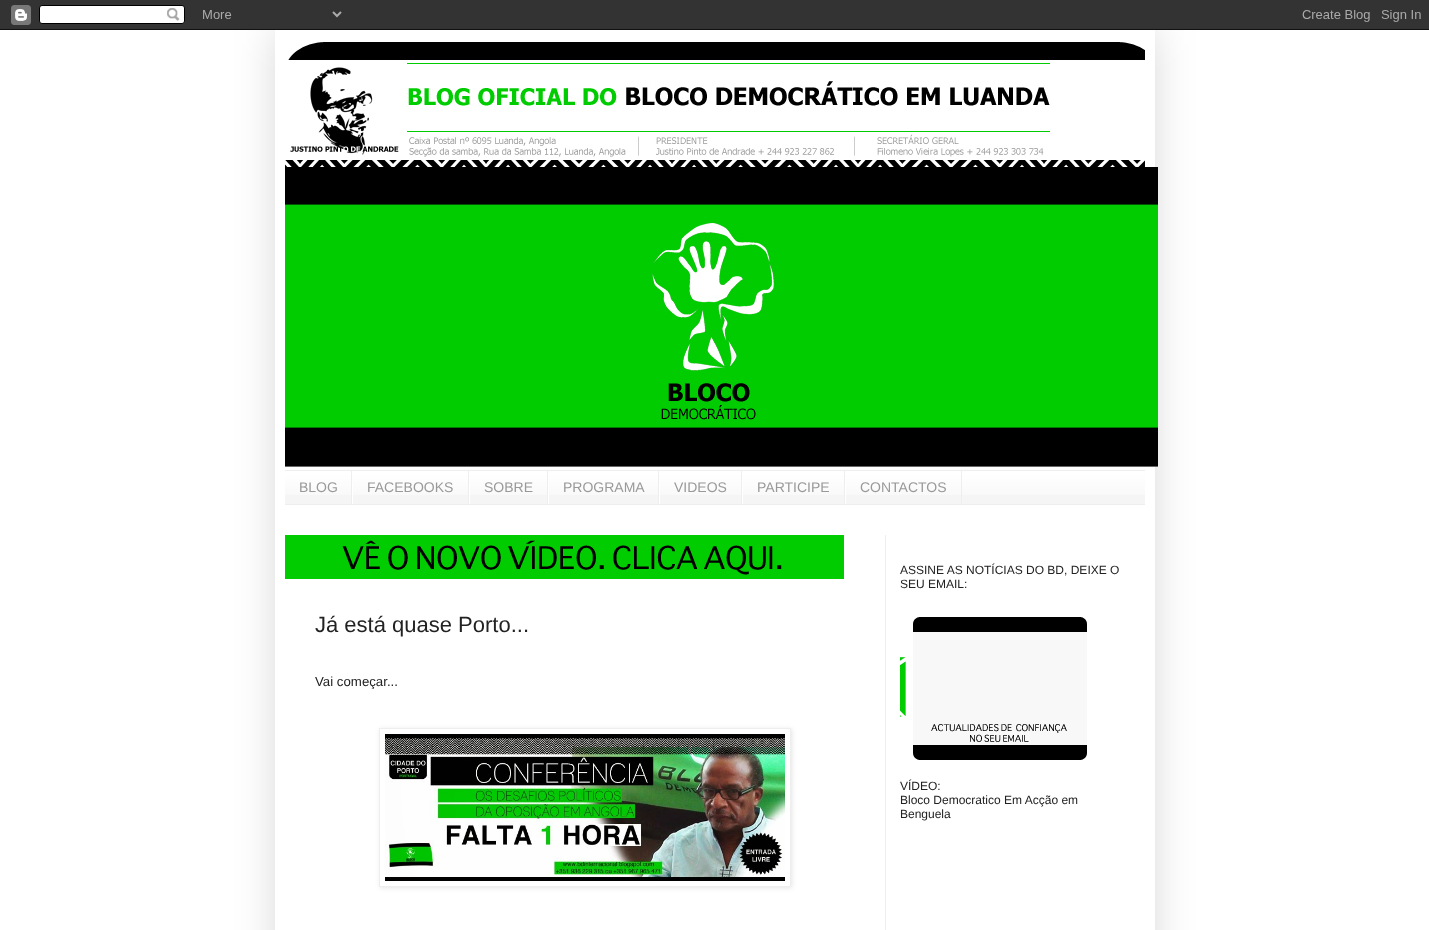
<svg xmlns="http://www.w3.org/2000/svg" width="1429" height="930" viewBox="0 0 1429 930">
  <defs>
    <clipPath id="clip1"><path d="M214 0H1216V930H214ZM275 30H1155V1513H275Z" clip-rule="evenodd"/></clipPath>
    <filter id="blur1" x="-50%" y="-200%" width="200%" height="500%"><feGaussianBlur stdDeviation="20"/></filter>
    <clipPath id="clip2"><path d="M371 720H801V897H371ZM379 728H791V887H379Z" clip-rule="evenodd"/></clipPath>
    <filter id="blur2" x="-50%" y="-200%" width="200%" height="500%"><feGaussianBlur stdDeviation="2.5"/></filter>
  </defs>
  <rect width="100%" height="100%" fill="#ffffff"/>
  <g clip-path="url(#clip1)">
    <rect x="275" y="30" width="880" height="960" fill="#000000" fill-opacity="0.15" filter="url(#blur1)"/>
  </g>
  <image x="0" y="0" width="1429" height="30" href="img1.png"/>
  <image x="285" y="42" width="860" height="125" href="img2.png"/>
  <image x="285" y="167" width="873" height="300" href="img3.png"/>
  <rect x="285" y="472" width="860" height="32" fill="#f5f5f5"/>
  <image x="285" y="471" width="860" height="24" href="img4.png"/>
  <rect x="285" y="470" width="860" height="1" fill="#eeeeee"/>
  <rect x="285" y="504" width="860" height="1" fill="#eeeeee"/>
  <rect x="351" y="471" width="1" height="33" fill="#eeeeee"/>
  <text x="299" y="492" font-family="Liberation Sans" font-size="14" fill="#999999">BLOG</text>
  <rect x="468" y="471" width="1" height="33" fill="#eeeeee"/>
  <rect x="352" y="482" width="1" height="22" fill="#ffffff"/>
  <text x="367" y="492" font-family="Liberation Sans" font-size="14" fill="#999999">FACEBOOKS</text>
  <rect x="547" y="471" width="1" height="33" fill="#eeeeee"/>
  <rect x="469" y="482" width="1" height="22" fill="#ffffff"/>
  <text x="484" y="492" font-family="Liberation Sans" font-size="14" fill="#999999">SOBRE</text>
  <rect x="658" y="471" width="1" height="33" fill="#eeeeee"/>
  <rect x="548" y="482" width="1" height="22" fill="#ffffff"/>
  <text x="563" y="492" font-family="Liberation Sans" font-size="14" fill="#999999">PROGRAMA</text>
  <rect x="741" y="471" width="1" height="33" fill="#eeeeee"/>
  <rect x="659" y="482" width="1" height="22" fill="#ffffff"/>
  <text x="674" y="492" font-family="Liberation Sans" font-size="14" fill="#999999">VIDEOS</text>
  <rect x="844" y="471" width="1" height="33" fill="#eeeeee"/>
  <rect x="742" y="482" width="1" height="22" fill="#ffffff"/>
  <text x="757" y="492" font-family="Liberation Sans" font-size="14" fill="#999999">PARTICIPE</text>
  <rect x="961" y="471" width="1" height="33" fill="#eeeeee"/>
  <rect x="845" y="482" width="1" height="22" fill="#ffffff"/>
  <text x="860" y="492" font-family="Liberation Sans" font-size="14" fill="#999999">CONTACTOS</text>
  <rect x="885" y="535" width="1" height="395" fill="#eeeeee"/>
  <image x="285" y="535" width="559" height="44" href="img5.png"/>
  <text x="315" y="632" font-family="Liberation Sans" font-size="22" fill="#222222">Já está quase Porto...</text>
  <text x="315" y="686" font-family="Liberation Sans" font-size="13.25" fill="#222222">Vai começar...</text>
  <g clip-path="url(#clip2)">
    <rect x="380" y="729" width="412" height="159" fill="#000000" fill-opacity="0.1" filter="url(#blur2)"/>
  </g>
  <rect x="379.5" y="728.5" width="411" height="158" fill="none" stroke="#eeeeee"/>
  <image x="385" y="734" width="400" height="147" href="img6.png"/>
  <text x="900" y="574" font-family="Liberation Sans" font-size="12" fill="#222222">ASSINE AS NOTÍCIAS DO BD, DEIXE O</text>
  <text x="900" y="588" font-family="Liberation Sans" font-size="12" fill="#222222">SEU EMAIL:</text>
  <image x="900" y="617" width="187" height="143" href="img7.png"/>
  <text x="900" y="790" font-family="Liberation Sans" font-size="12" fill="#222222">VÍDEO:</text>
  <text x="900" y="804" font-family="Liberation Sans" font-size="12" fill="#222222">Bloco Democratico Em Acção em</text>
  <text x="900" y="818" font-family="Liberation Sans" font-size="12" fill="#222222">Benguela</text>
</svg>
